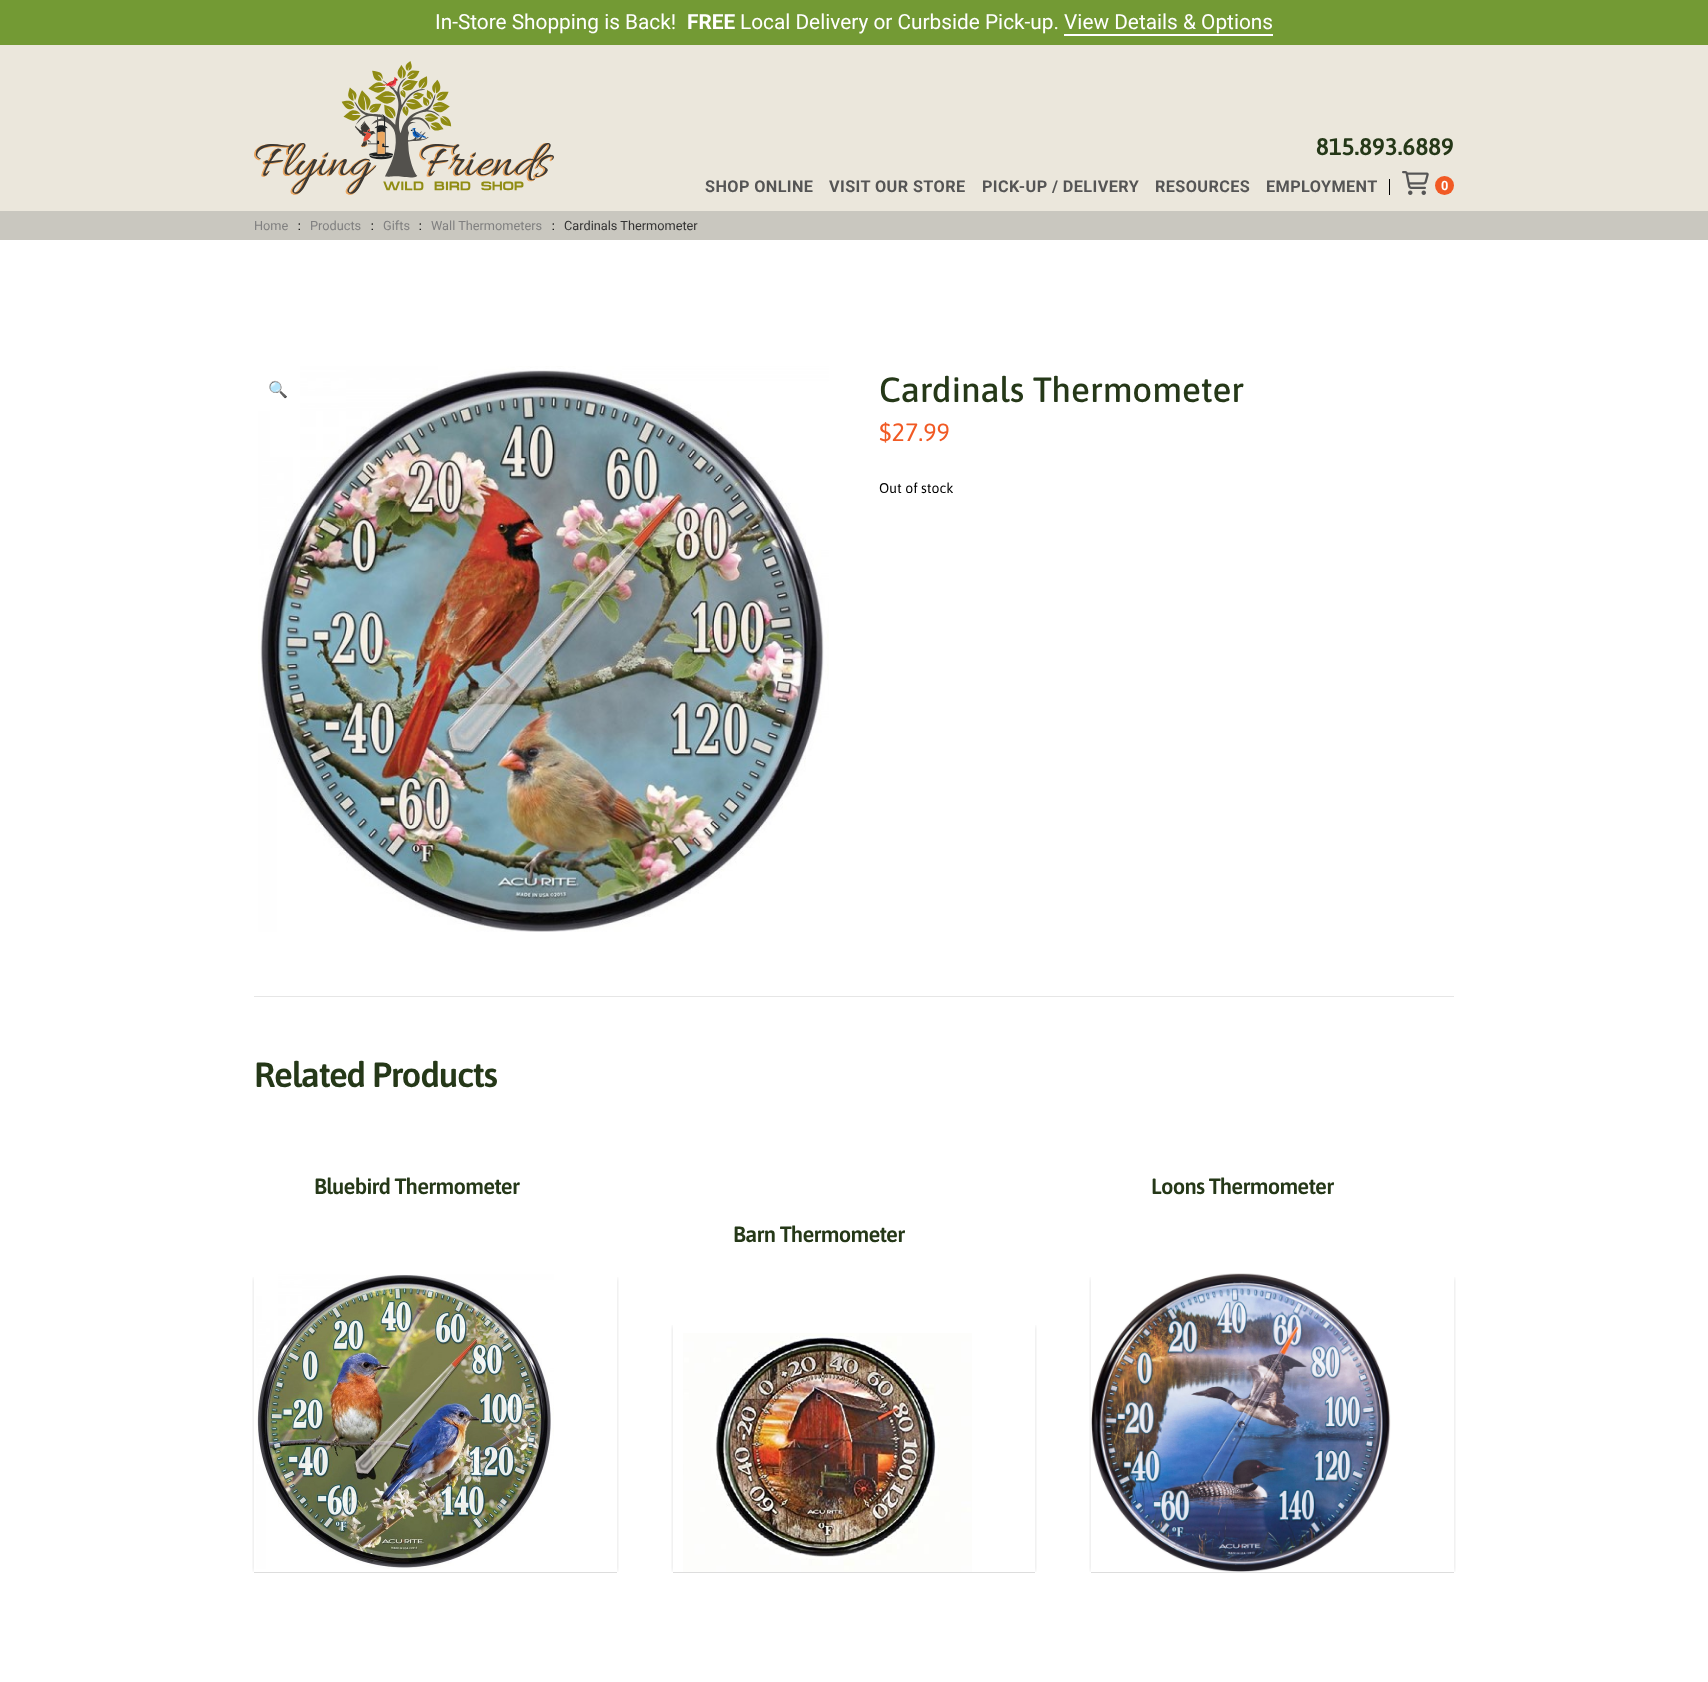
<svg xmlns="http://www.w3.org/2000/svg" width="1708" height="1682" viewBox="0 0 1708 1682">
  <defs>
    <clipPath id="clip1"><rect x="689" y="179" width="124" height="16"/></clipPath>
    <clipPath id="clip2"><rect x="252" y="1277" width="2" height="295"/></clipPath>
    <filter id="blur1" x="-50%" y="-200%" width="200%" height="500%"><feGaussianBlur stdDeviation="2"/></filter>
    <clipPath id="clip3"><rect x="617" y="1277" width="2" height="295"/></clipPath>
    <clipPath id="clip4"><rect x="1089" y="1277" width="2" height="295"/></clipPath>
    <clipPath id="clip5"><rect x="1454" y="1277" width="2" height="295"/></clipPath>
    <clipPath id="clip6"><rect x="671" y="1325" width="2" height="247"/></clipPath>
    <clipPath id="clip7"><rect x="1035" y="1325" width="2" height="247"/></clipPath>
  </defs>
  <rect width="100%" height="100%" fill="#ffffff"/>
  <rect x="0" y="0" width="1708" height="45" fill="#739a34"/>
  <text x="435" y="29" font-family="Roboto" font-size="20.8" fill="#ffffff">In-Store Shopping is Back!</text>
  <text x="687" y="29" font-family="Roboto" font-size="20.8" font-weight="bold" fill="#ffffff">FREE</text>
  <text x="740" y="29" font-family="Roboto" font-size="20.8" fill="#ffffff">Local Delivery or Curbside Pick-up. View Details &amp; Options</text>
  <rect x="1064" y="34" width="209" height="2" fill="#ffffff"/>
  <rect x="0" y="45" width="1708" height="166" fill="#ebe7dc"/>
  <image x="254" y="61" width="300" height="134" href="img1.png"/>
  <text x="1316" y="155" font-family="Asap" font-size="24" font-weight="600" fill="#253818">815.893.6889</text>
  <rect x="1389" y="179" width="1" height="16" fill="#000000"/>
  <g clip-path="url(#clip1)">
    <text x="705" y="192" font-family="Roboto" font-size="16.25" font-weight="bold" letter-spacing="0.4" fill="#555555">SHOP ONLINE</text>
  </g>
  <text x="829" y="192" font-family="Roboto" font-size="16.25" font-weight="bold" letter-spacing="0.4" fill="#555555">VISIT OUR STORE</text>
  <text x="982" y="192" font-family="Roboto" font-size="16.25" font-weight="bold" letter-spacing="0.4" fill="#555555">PICK-UP / DELIVERY</text>
  <text x="1155" y="192" font-family="Roboto" font-size="16.25" font-weight="bold" letter-spacing="0.4" fill="#555555">RESOURCES</text>
  <text x="1266" y="192" font-family="Roboto" font-size="16.25" font-weight="bold" letter-spacing="0.4" fill="#555555">EMPLOYMENT</text>
  <image x="1402" y="171" width="27" height="24" href="img2.png"/>
  <circle cx="1444.5" cy="185.5" r="9.5" fill="#f15a24"/>
  <text x="1441" y="190" font-family="Roboto" font-size="12.75" font-weight="bold" fill="#ffffff">0</text>
  <rect x="0" y="211" width="1708" height="29" fill="#c9c7bf"/>
  <text x="254" y="230" font-family="Roboto" font-size="12.75" fill="#808080">Home</text>
  <text x="298" y="230" font-family="Asap" font-size="12.75" fill="#000000">:</text>
  <text x="310" y="230" font-family="Roboto" font-size="12.75" fill="#808080">Products</text>
  <text x="371" y="230" font-family="Asap" font-size="12.75" fill="#000000">:</text>
  <text x="383" y="230" font-family="Roboto" font-size="12.75" fill="#808080">Gifts</text>
  <text x="419" y="230" font-family="Asap" font-size="12.75" fill="#000000">:</text>
  <text x="431" y="230" font-family="Roboto" font-size="12.75" fill="#808080">Wall Thermometers</text>
  <text x="552" y="230" font-family="Asap" font-size="12.75" fill="#000000">:</text>
  <text x="564" y="230" font-family="Roboto" font-size="12.75" fill="#333333">Cardinals Thermometer</text>
  <image x="258" y="366" width="571" height="566" href="img3.png"/>
  <text x="268" y="395" font-family="Noto Color Emoji" font-size="16" fill="#f15a24">🔍</text>
  <text x="879" y="402" font-family="Asap" font-size="35" font-weight="500" fill="#253818">Cardinals Thermometer</text>
  <text x="879" y="441" font-family="Asap" font-size="25" fill="#f15a24">$27.99</text>
  <text x="879" y="493" font-family="Asap" font-size="14" fill="#000000">Out of stock</text>
  <rect x="254" y="996" width="1200" height="1" fill="#e6e6e6"/>
  <text x="254" y="1087" font-family="Asap" font-size="35" font-weight="600" letter-spacing="-1.25" fill="#253818">Related Products</text>
  <text x="314" y="1194" font-family="Asap" font-size="22" font-weight="600" letter-spacing="-0.75" fill="#253818">Bluebird Thermometer</text>
  <g clip-path="url(#clip2)">
    <rect x="254" y="1278" width="355" height="293" fill="#000000" fill-opacity="0.13" filter="url(#blur1)"/>
  </g>
  <g clip-path="url(#clip3)">
    <rect x="262" y="1278" width="355" height="293" fill="#000000" fill-opacity="0.13" filter="url(#blur1)"/>
  </g>
  <rect x="254" y="1572" width="363" height="1" fill="#dddddd"/>
  <image x="256" y="1274" width="298" height="295" href="img4.png"/>
  <text x="1151" y="1194" font-family="Asap" font-size="22" font-weight="600" letter-spacing="-0.75" fill="#253818">Loons Thermometer</text>
  <g clip-path="url(#clip4)">
    <rect x="1091" y="1278" width="355" height="293" fill="#000000" fill-opacity="0.13" filter="url(#blur1)"/>
  </g>
  <g clip-path="url(#clip5)">
    <rect x="1099" y="1278" width="355" height="293" fill="#000000" fill-opacity="0.13" filter="url(#blur1)"/>
  </g>
  <rect x="1091" y="1572" width="363" height="1" fill="#dddddd"/>
  <image x="1091" y="1273" width="300" height="299" href="img5.png"/>
  <text x="733" y="1242" font-family="Asap" font-size="22" font-weight="600" letter-spacing="-0.75" fill="#253818">Barn Thermometer</text>
  <g clip-path="url(#clip6)">
    <rect x="673" y="1326" width="354" height="245" fill="#000000" fill-opacity="0.13" filter="url(#blur1)"/>
  </g>
  <g clip-path="url(#clip7)">
    <rect x="681" y="1326" width="354" height="245" fill="#000000" fill-opacity="0.13" filter="url(#blur1)"/>
  </g>
  <rect x="673" y="1572" width="362" height="1" fill="#dddddd"/>
  <image x="683" y="1333" width="289" height="239" href="img6.png"/>
</svg>
